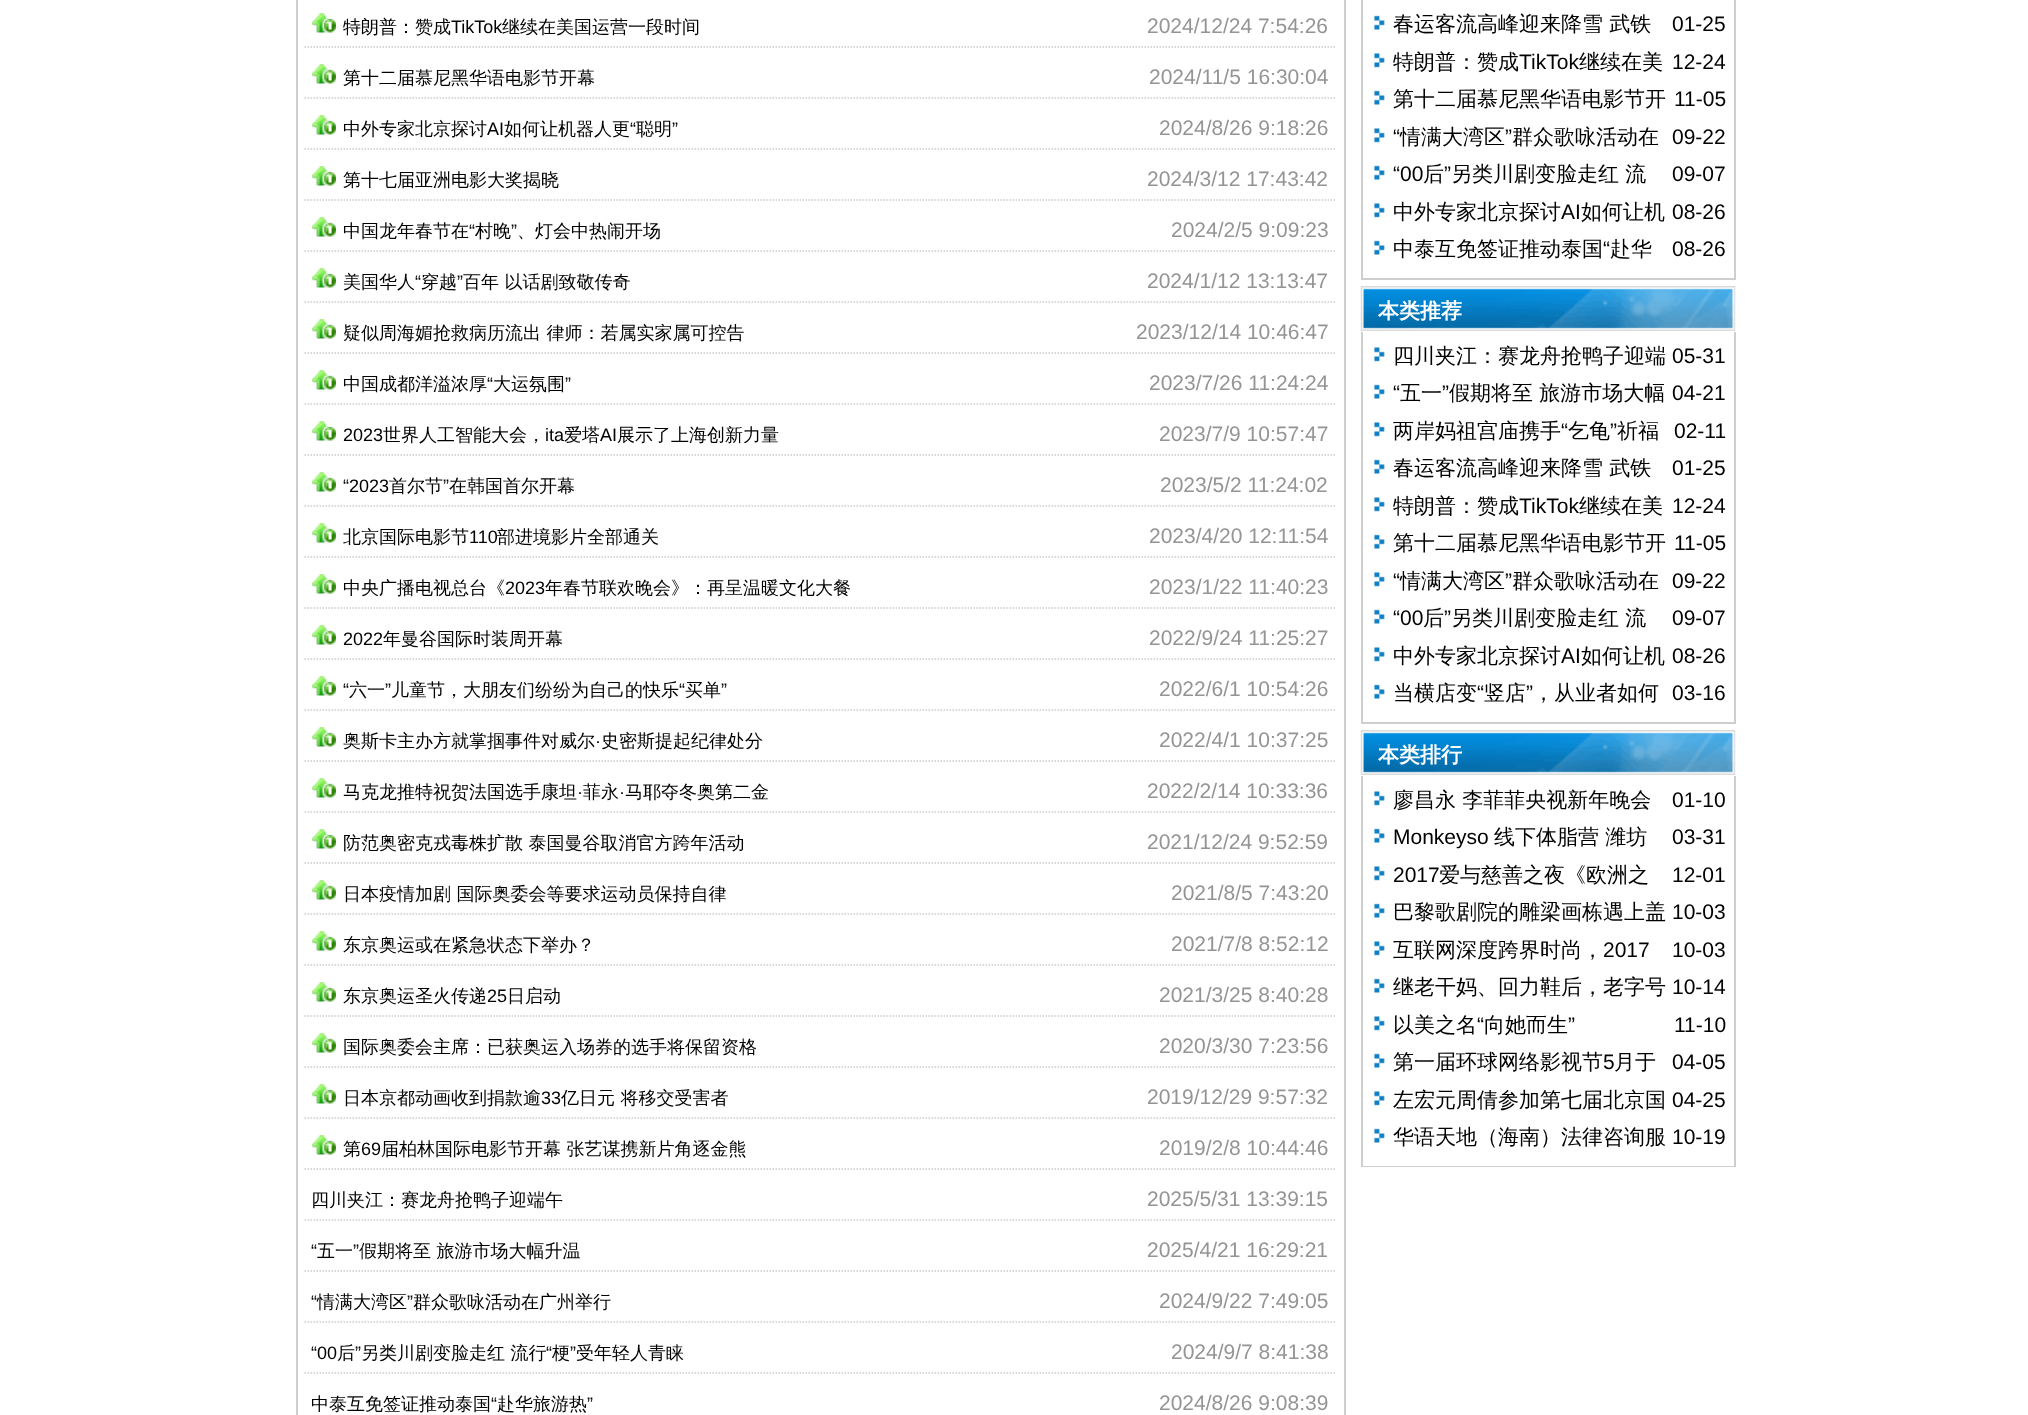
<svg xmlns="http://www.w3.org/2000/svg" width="2028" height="1415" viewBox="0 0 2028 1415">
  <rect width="100%" height="100%" fill="#ffffff"/>
  <rect x="1344" y="0" width="2" height="1415" fill="#cecece"/>
  <rect x="296" y="0" width="2" height="1415" fill="#cecece"/>
  <path d="M304.5 47H1336.5" fill="none" stroke="#cccccc" stroke-width="1.5" stroke-dasharray="1.5 1.5"/>
  <image x="312" y="13" width="24" height="20" href="img1.png"/>
  <text x="343" y="33" font-family="WenQuanYi Zen Hei" font-size="18" font-weight="500" fill="#000000">特朗普：赞成</text>
  <text x="451" y="33" font-family="Liberation Sans" font-size="18" fill="#000000">TikTok</text>
  <text x="502" y="33" font-family="WenQuanYi Zen Hei" font-size="18" font-weight="500" fill="#000000">继续在美国运营一段时间</text>
  <text x="1147" y="33" font-family="Liberation Sans" font-size="21" fill="#959495">2024/12/24 7:54:26</text>
  <path d="M304.5 98H1336.5" fill="none" stroke="#cccccc" stroke-width="1.5" stroke-dasharray="1.5 1.5"/>
  <image x="312" y="64" width="24" height="20" href="img1.png"/>
  <text x="343" y="84" font-family="WenQuanYi Zen Hei" font-size="18" font-weight="500" fill="#000000">第十二届慕尼黑华语电影节开幕</text>
  <text x="1149" y="84" font-family="Liberation Sans" font-size="21" fill="#959495">2024/11/5 16:30:04</text>
  <path d="M304.5 149H1336.5" fill="none" stroke="#cccccc" stroke-width="1.5" stroke-dasharray="1.5 1.5"/>
  <image x="312" y="115" width="24" height="20" href="img1.png"/>
  <text x="343" y="135" font-family="WenQuanYi Zen Hei" font-size="18" font-weight="500" fill="#000000">中外专家北京探讨</text>
  <text x="487" y="135" font-family="Liberation Sans" font-size="18" fill="#000000">AI</text>
  <text x="504" y="135" font-family="WenQuanYi Zen Hei" font-size="18" font-weight="500" fill="#000000">如何让机器人更</text>
  <text x="630" y="135" font-family="Liberation Sans" font-size="18" fill="#000000">“</text>
  <text x="636" y="135" font-family="WenQuanYi Zen Hei" font-size="18" font-weight="500" fill="#000000">聪明</text>
  <text x="672" y="135" font-family="Liberation Sans" font-size="18" fill="#000000">”</text>
  <text x="1159" y="135" font-family="Liberation Sans" font-size="21" fill="#959495">2024/8/26 9:18:26</text>
  <path d="M304.5 200H1336.5" fill="none" stroke="#cccccc" stroke-width="1.5" stroke-dasharray="1.5 1.5"/>
  <image x="312" y="166" width="24" height="20" href="img1.png"/>
  <text x="343" y="186" font-family="WenQuanYi Zen Hei" font-size="18" font-weight="500" fill="#000000">第十七届亚洲电影大奖揭晓</text>
  <text x="1147" y="186" font-family="Liberation Sans" font-size="21" fill="#959495">2024/3/12 17:43:42</text>
  <path d="M304.5 251H1336.5" fill="none" stroke="#cccccc" stroke-width="1.5" stroke-dasharray="1.5 1.5"/>
  <image x="312" y="217" width="24" height="20" href="img1.png"/>
  <text x="343" y="237" font-family="WenQuanYi Zen Hei" font-size="18" font-weight="500" fill="#000000">中国龙年春节在</text>
  <text x="469" y="237" font-family="Liberation Sans" font-size="18" fill="#000000">“</text>
  <text x="475" y="237" font-family="WenQuanYi Zen Hei" font-size="18" font-weight="500" fill="#000000">村晚</text>
  <text x="511" y="237" font-family="Liberation Sans" font-size="18" fill="#000000">”</text>
  <text x="517" y="237" font-family="WenQuanYi Zen Hei" font-size="18" font-weight="500" fill="#000000">、灯会中热闹开场</text>
  <text x="1171" y="237" font-family="Liberation Sans" font-size="21" fill="#959495">2024/2/5 9:09:23</text>
  <path d="M304.5 302H1336.5" fill="none" stroke="#cccccc" stroke-width="1.5" stroke-dasharray="1.5 1.5"/>
  <image x="312" y="268" width="24" height="20" href="img1.png"/>
  <text x="343" y="288" font-family="WenQuanYi Zen Hei" font-size="18" font-weight="500" fill="#000000">美国华人</text>
  <text x="415" y="288" font-family="Liberation Sans" font-size="18" fill="#000000">“</text>
  <text x="421" y="288" font-family="WenQuanYi Zen Hei" font-size="18" font-weight="500" fill="#000000">穿越</text>
  <text x="457" y="288" font-family="Liberation Sans" font-size="18" fill="#000000">”</text>
  <text x="463" y="288" font-family="WenQuanYi Zen Hei" font-size="18" font-weight="500" fill="#000000">百年 以话剧致敬传奇</text>
  <text x="1147" y="288" font-family="Liberation Sans" font-size="21" fill="#959495">2024/1/12 13:13:47</text>
  <path d="M304.5 353H1336.5" fill="none" stroke="#cccccc" stroke-width="1.5" stroke-dasharray="1.5 1.5"/>
  <image x="312" y="319" width="24" height="20" href="img1.png"/>
  <text x="343" y="339" font-family="WenQuanYi Zen Hei" font-size="18" font-weight="500" fill="#000000">疑似周海媚抢救病历流出 律师：若属实家属可控告</text>
  <text x="1136" y="339" font-family="Liberation Sans" font-size="21" fill="#959495">2023/12/14 10:46:47</text>
  <path d="M304.5 404H1336.5" fill="none" stroke="#cccccc" stroke-width="1.5" stroke-dasharray="1.5 1.5"/>
  <image x="312" y="370" width="24" height="20" href="img1.png"/>
  <text x="343" y="390" font-family="WenQuanYi Zen Hei" font-size="18" font-weight="500" fill="#000000">中国成都洋溢浓厚</text>
  <text x="487" y="390" font-family="Liberation Sans" font-size="18" fill="#000000">“</text>
  <text x="493" y="390" font-family="WenQuanYi Zen Hei" font-size="18" font-weight="500" fill="#000000">大运氛围</text>
  <text x="565" y="390" font-family="Liberation Sans" font-size="18" fill="#000000">”</text>
  <text x="1149" y="390" font-family="Liberation Sans" font-size="21" fill="#959495">2023/7/26 11:24:24</text>
  <path d="M304.5 455H1336.5" fill="none" stroke="#cccccc" stroke-width="1.5" stroke-dasharray="1.5 1.5"/>
  <image x="312" y="421" width="24" height="20" href="img1.png"/>
  <text x="343" y="441" font-family="Liberation Sans" font-size="18" fill="#000000">2023</text>
  <text x="383" y="441" font-family="WenQuanYi Zen Hei" font-size="18" font-weight="500" fill="#000000">世界人工智能大会，</text>
  <text x="545" y="441" font-family="Liberation Sans" font-size="18" fill="#000000">ita</text>
  <text x="564" y="441" font-family="WenQuanYi Zen Hei" font-size="18" font-weight="500" fill="#000000">爱塔</text>
  <text x="600" y="441" font-family="Liberation Sans" font-size="18" fill="#000000">AI</text>
  <text x="617" y="441" font-family="WenQuanYi Zen Hei" font-size="18" font-weight="500" fill="#000000">展示了上海创新力量</text>
  <text x="1159" y="441" font-family="Liberation Sans" font-size="21" fill="#959495">2023/7/9 10:57:47</text>
  <path d="M304.5 506H1336.5" fill="none" stroke="#cccccc" stroke-width="1.5" stroke-dasharray="1.5 1.5"/>
  <image x="312" y="472" width="24" height="20" href="img1.png"/>
  <text x="343" y="492" font-family="Liberation Sans" font-size="18" fill="#000000">“2023</text>
  <text x="389" y="492" font-family="WenQuanYi Zen Hei" font-size="18" font-weight="500" fill="#000000">首尔节</text>
  <text x="443" y="492" font-family="Liberation Sans" font-size="18" fill="#000000">”</text>
  <text x="449" y="492" font-family="WenQuanYi Zen Hei" font-size="18" font-weight="500" fill="#000000">在韩国首尔开幕</text>
  <text x="1160" y="492" font-family="Liberation Sans" font-size="21" fill="#959495">2023/5/2 11:24:02</text>
  <path d="M304.5 557H1336.5" fill="none" stroke="#cccccc" stroke-width="1.5" stroke-dasharray="1.5 1.5"/>
  <image x="312" y="523" width="24" height="20" href="img1.png"/>
  <text x="343" y="543" font-family="WenQuanYi Zen Hei" font-size="18" font-weight="500" fill="#000000">北京国际电影节</text>
  <text x="469" y="543" font-family="Liberation Sans" font-size="18" fill="#000000">110</text>
  <text x="497" y="543" font-family="WenQuanYi Zen Hei" font-size="18" font-weight="500" fill="#000000">部进境影片全部通关</text>
  <text x="1149" y="543" font-family="Liberation Sans" font-size="21" fill="#959495">2023/4/20 12:11:54</text>
  <path d="M304.5 608H1336.5" fill="none" stroke="#cccccc" stroke-width="1.5" stroke-dasharray="1.5 1.5"/>
  <image x="312" y="574" width="24" height="20" href="img1.png"/>
  <text x="343" y="594" font-family="WenQuanYi Zen Hei" font-size="18" font-weight="500" fill="#000000">中央广播电视总台《</text>
  <text x="505" y="594" font-family="Liberation Sans" font-size="18" fill="#000000">2023</text>
  <text x="545" y="594" font-family="WenQuanYi Zen Hei" font-size="18" font-weight="500" fill="#000000">年春节联欢晚会》：再呈温暖文化大餐</text>
  <text x="1149" y="594" font-family="Liberation Sans" font-size="21" fill="#959495">2023/1/22 11:40:23</text>
  <path d="M304.5 659H1336.5" fill="none" stroke="#cccccc" stroke-width="1.5" stroke-dasharray="1.5 1.5"/>
  <image x="312" y="625" width="24" height="20" href="img1.png"/>
  <text x="343" y="645" font-family="Liberation Sans" font-size="18" fill="#000000">2022</text>
  <text x="383" y="645" font-family="WenQuanYi Zen Hei" font-size="18" font-weight="500" fill="#000000">年曼谷国际时装周开幕</text>
  <text x="1149" y="645" font-family="Liberation Sans" font-size="21" fill="#959495">2022/9/24 11:25:27</text>
  <path d="M304.5 710H1336.5" fill="none" stroke="#cccccc" stroke-width="1.5" stroke-dasharray="1.5 1.5"/>
  <image x="312" y="676" width="24" height="20" href="img1.png"/>
  <text x="343" y="696" font-family="Liberation Sans" font-size="18" fill="#000000">“</text>
  <text x="349" y="696" font-family="WenQuanYi Zen Hei" font-size="18" font-weight="500" fill="#000000">六一</text>
  <text x="385" y="696" font-family="Liberation Sans" font-size="18" fill="#000000">”</text>
  <text x="391" y="696" font-family="WenQuanYi Zen Hei" font-size="18" font-weight="500" fill="#000000">儿童节，大朋友们纷纷为自己的快乐</text>
  <text x="679" y="696" font-family="Liberation Sans" font-size="18" fill="#000000">“</text>
  <text x="685" y="696" font-family="WenQuanYi Zen Hei" font-size="18" font-weight="500" fill="#000000">买单</text>
  <text x="721" y="696" font-family="Liberation Sans" font-size="18" fill="#000000">”</text>
  <text x="1159" y="696" font-family="Liberation Sans" font-size="21" fill="#959495">2022/6/1 10:54:26</text>
  <path d="M304.5 761H1336.5" fill="none" stroke="#cccccc" stroke-width="1.5" stroke-dasharray="1.5 1.5"/>
  <image x="312" y="727" width="24" height="20" href="img1.png"/>
  <text x="343" y="747" font-family="WenQuanYi Zen Hei" font-size="18" font-weight="500" fill="#000000">奥斯卡主办方就掌掴事件对威尔</text>
  <text x="595" y="747" font-family="Liberation Sans" font-size="18" fill="#000000">·</text>
  <text x="601" y="747" font-family="WenQuanYi Zen Hei" font-size="18" font-weight="500" fill="#000000">史密斯提起纪律处分</text>
  <text x="1159" y="747" font-family="Liberation Sans" font-size="21" fill="#959495">2022/4/1 10:37:25</text>
  <path d="M304.5 812H1336.5" fill="none" stroke="#cccccc" stroke-width="1.5" stroke-dasharray="1.5 1.5"/>
  <image x="312" y="778" width="24" height="20" href="img1.png"/>
  <text x="343" y="798" font-family="WenQuanYi Zen Hei" font-size="18" font-weight="500" fill="#000000">马克龙推特祝贺法国选手康坦</text>
  <text x="577" y="798" font-family="Liberation Sans" font-size="18" fill="#000000">·</text>
  <text x="583" y="798" font-family="WenQuanYi Zen Hei" font-size="18" font-weight="500" fill="#000000">菲永</text>
  <text x="619" y="798" font-family="Liberation Sans" font-size="18" fill="#000000">·</text>
  <text x="625" y="798" font-family="WenQuanYi Zen Hei" font-size="18" font-weight="500" fill="#000000">马耶夺冬奥第二金</text>
  <text x="1147" y="798" font-family="Liberation Sans" font-size="21" fill="#959495">2022/2/14 10:33:36</text>
  <path d="M304.5 863H1336.5" fill="none" stroke="#cccccc" stroke-width="1.5" stroke-dasharray="1.5 1.5"/>
  <image x="312" y="829" width="24" height="20" href="img1.png"/>
  <text x="343" y="849" font-family="WenQuanYi Zen Hei" font-size="18" font-weight="500" fill="#000000">防范奥密克戎毒株扩散 泰国曼谷取消官方跨年活动</text>
  <text x="1147" y="849" font-family="Liberation Sans" font-size="21" fill="#959495">2021/12/24 9:52:59</text>
  <path d="M304.5 914H1336.5" fill="none" stroke="#cccccc" stroke-width="1.5" stroke-dasharray="1.5 1.5"/>
  <image x="312" y="880" width="24" height="20" href="img1.png"/>
  <text x="343" y="900" font-family="WenQuanYi Zen Hei" font-size="18" font-weight="500" fill="#000000">日本疫情加剧 国际奥委会等要求运动员保持自律</text>
  <text x="1171" y="900" font-family="Liberation Sans" font-size="21" fill="#959495">2021/8/5 7:43:20</text>
  <path d="M304.5 965H1336.5" fill="none" stroke="#cccccc" stroke-width="1.5" stroke-dasharray="1.5 1.5"/>
  <image x="312" y="931" width="24" height="20" href="img1.png"/>
  <text x="343" y="951" font-family="WenQuanYi Zen Hei" font-size="18" font-weight="500" fill="#000000">东京奥运或在紧急状态下举办？</text>
  <text x="1171" y="951" font-family="Liberation Sans" font-size="21" fill="#959495">2021/7/8 8:52:12</text>
  <path d="M304.5 1016H1336.5" fill="none" stroke="#cccccc" stroke-width="1.5" stroke-dasharray="1.5 1.5"/>
  <image x="312" y="982" width="24" height="20" href="img1.png"/>
  <text x="343" y="1002" font-family="WenQuanYi Zen Hei" font-size="18" font-weight="500" fill="#000000">东京奥运圣火传递</text>
  <text x="487" y="1002" font-family="Liberation Sans" font-size="18" fill="#000000">25</text>
  <text x="507" y="1002" font-family="WenQuanYi Zen Hei" font-size="18" font-weight="500" fill="#000000">日启动</text>
  <text x="1159" y="1002" font-family="Liberation Sans" font-size="21" fill="#959495">2021/3/25 8:40:28</text>
  <path d="M304.5 1067H1336.5" fill="none" stroke="#cccccc" stroke-width="1.5" stroke-dasharray="1.5 1.5"/>
  <image x="312" y="1033" width="24" height="20" href="img1.png"/>
  <text x="343" y="1053" font-family="WenQuanYi Zen Hei" font-size="18" font-weight="500" fill="#000000">国际奥委会主席：已获奥运入场券的选手将保留资格</text>
  <text x="1159" y="1053" font-family="Liberation Sans" font-size="21" fill="#959495">2020/3/30 7:23:56</text>
  <path d="M304.5 1118H1336.5" fill="none" stroke="#cccccc" stroke-width="1.5" stroke-dasharray="1.5 1.5"/>
  <image x="312" y="1084" width="24" height="20" href="img1.png"/>
  <text x="343" y="1104" font-family="WenQuanYi Zen Hei" font-size="18" font-weight="500" fill="#000000">日本京都动画收到捐款逾</text>
  <text x="541" y="1104" font-family="Liberation Sans" font-size="18" fill="#000000">33</text>
  <text x="561" y="1104" font-family="WenQuanYi Zen Hei" font-size="18" font-weight="500" fill="#000000">亿日元 将移交受害者</text>
  <text x="1147" y="1104" font-family="Liberation Sans" font-size="21" fill="#959495">2019/12/29 9:57:32</text>
  <path d="M304.5 1169H1336.5" fill="none" stroke="#cccccc" stroke-width="1.5" stroke-dasharray="1.5 1.5"/>
  <image x="312" y="1135" width="24" height="20" href="img1.png"/>
  <text x="343" y="1155" font-family="WenQuanYi Zen Hei" font-size="18" font-weight="500" fill="#000000">第</text>
  <text x="361" y="1155" font-family="Liberation Sans" font-size="18" fill="#000000">69</text>
  <text x="381" y="1155" font-family="WenQuanYi Zen Hei" font-size="18" font-weight="500" fill="#000000">届柏林国际电影节开幕 张艺谋携新片角逐金熊</text>
  <text x="1159" y="1155" font-family="Liberation Sans" font-size="21" fill="#959495">2019/2/8 10:44:46</text>
  <path d="M304.5 1220H1336.5" fill="none" stroke="#cccccc" stroke-width="1.5" stroke-dasharray="1.5 1.5"/>
  <text x="311" y="1206" font-family="WenQuanYi Zen Hei" font-size="18" font-weight="500" fill="#000000">四川夹江：赛龙舟抢鸭子迎端午</text>
  <text x="1147" y="1206" font-family="Liberation Sans" font-size="21" fill="#959495">2025/5/31 13:39:15</text>
  <path d="M304.5 1271H1336.5" fill="none" stroke="#cccccc" stroke-width="1.5" stroke-dasharray="1.5 1.5"/>
  <text x="311" y="1257" font-family="Liberation Sans" font-size="18" fill="#000000">“</text>
  <text x="317" y="1257" font-family="WenQuanYi Zen Hei" font-size="18" font-weight="500" fill="#000000">五一</text>
  <text x="353" y="1257" font-family="Liberation Sans" font-size="18" fill="#000000">”</text>
  <text x="359" y="1257" font-family="WenQuanYi Zen Hei" font-size="18" font-weight="500" fill="#000000">假期将至 旅游市场大幅升温</text>
  <text x="1147" y="1257" font-family="Liberation Sans" font-size="21" fill="#959495">2025/4/21 16:29:21</text>
  <path d="M304.5 1322H1336.5" fill="none" stroke="#cccccc" stroke-width="1.5" stroke-dasharray="1.5 1.5"/>
  <text x="311" y="1308" font-family="Liberation Sans" font-size="18" fill="#000000">“</text>
  <text x="317" y="1308" font-family="WenQuanYi Zen Hei" font-size="18" font-weight="500" fill="#000000">情满大湾区</text>
  <text x="407" y="1308" font-family="Liberation Sans" font-size="18" fill="#000000">”</text>
  <text x="413" y="1308" font-family="WenQuanYi Zen Hei" font-size="18" font-weight="500" fill="#000000">群众歌咏活动在广州举行</text>
  <text x="1159" y="1308" font-family="Liberation Sans" font-size="21" fill="#959495">2024/9/22 7:49:05</text>
  <path d="M304.5 1373H1336.5" fill="none" stroke="#cccccc" stroke-width="1.5" stroke-dasharray="1.5 1.5"/>
  <text x="311" y="1359" font-family="Liberation Sans" font-size="18" fill="#000000">“00</text>
  <text x="337" y="1359" font-family="WenQuanYi Zen Hei" font-size="18" font-weight="500" fill="#000000">后</text>
  <text x="355" y="1359" font-family="Liberation Sans" font-size="18" fill="#000000">”</text>
  <text x="361" y="1359" font-family="WenQuanYi Zen Hei" font-size="18" font-weight="500" fill="#000000">另类川剧变脸走红 流行</text>
  <text x="546" y="1359" font-family="Liberation Sans" font-size="18" fill="#000000">“</text>
  <text x="552" y="1359" font-family="WenQuanYi Zen Hei" font-size="18" font-weight="500" fill="#000000">梗</text>
  <text x="570" y="1359" font-family="Liberation Sans" font-size="18" fill="#000000">”</text>
  <text x="576" y="1359" font-family="WenQuanYi Zen Hei" font-size="18" font-weight="500" fill="#000000">受年轻人青睐</text>
  <text x="1171" y="1359" font-family="Liberation Sans" font-size="21" fill="#959495">2024/9/7 8:41:38</text>
  <text x="311" y="1410" font-family="WenQuanYi Zen Hei" font-size="18" font-weight="500" fill="#000000">中泰互免签证推动泰国</text>
  <text x="491" y="1410" font-family="Liberation Sans" font-size="18" fill="#000000">“</text>
  <text x="497" y="1410" font-family="WenQuanYi Zen Hei" font-size="18" font-weight="500" fill="#000000">赴华旅游热</text>
  <text x="587" y="1410" font-family="Liberation Sans" font-size="18" fill="#000000">”</text>
  <text x="1159" y="1410" font-family="Liberation Sans" font-size="21" fill="#959495">2024/8/26 9:08:39</text>
  <rect x="1734" y="0" width="2" height="279" fill="#cecece"/>
  <rect x="1361" y="278" width="375" height="2" fill="#cecece"/>
  <rect x="1361" y="0" width="2" height="279" fill="#cecece"/>
  <image x="1374" y="15" width="11" height="15" href="img2.png"/>
  <text x="1393" y="31" font-family="WenQuanYi Zen Hei" font-size="21" font-weight="500" fill="#000000">春运客流高峰迎来降雪 武铁</text>
  <text x="1672" y="31" font-family="Liberation Sans" font-size="21" fill="#000000">01-25</text>
  <image x="1374" y="53" width="11" height="15" href="img3.png"/>
  <text x="1393" y="69" font-family="WenQuanYi Zen Hei" font-size="21" font-weight="500" fill="#000000">特朗普：赞成</text>
  <text x="1519" y="69" font-family="Liberation Sans" font-size="21" fill="#000000">TikTok</text>
  <text x="1579" y="69" font-family="WenQuanYi Zen Hei" font-size="21" font-weight="500" fill="#000000">继续在美</text>
  <text x="1672" y="69" font-family="Liberation Sans" font-size="21" fill="#000000">12-24</text>
  <image x="1374" y="90" width="11" height="15" href="img2.png"/>
  <text x="1393" y="106" font-family="WenQuanYi Zen Hei" font-size="21" font-weight="500" fill="#000000">第十二届慕尼黑华语电影节开</text>
  <text x="1674" y="106" font-family="Liberation Sans" font-size="21" fill="#000000">11-05</text>
  <image x="1374" y="128" width="11" height="15" href="img3.png"/>
  <text x="1393" y="144" font-family="Liberation Sans" font-size="21" fill="#000000">“</text>
  <text x="1400" y="144" font-family="WenQuanYi Zen Hei" font-size="21" font-weight="500" fill="#000000">情满大湾区</text>
  <text x="1505" y="144" font-family="Liberation Sans" font-size="21" fill="#000000">”</text>
  <text x="1512" y="144" font-family="WenQuanYi Zen Hei" font-size="21" font-weight="500" fill="#000000">群众歌咏活动在</text>
  <text x="1672" y="144" font-family="Liberation Sans" font-size="21" fill="#000000">09-22</text>
  <image x="1374" y="165" width="11" height="15" href="img2.png"/>
  <text x="1393" y="181" font-family="Liberation Sans" font-size="21" fill="#000000">“00</text>
  <text x="1423" y="181" font-family="WenQuanYi Zen Hei" font-size="21" font-weight="500" fill="#000000">后</text>
  <text x="1444" y="181" font-family="Liberation Sans" font-size="21" fill="#000000">”</text>
  <text x="1451" y="181" font-family="WenQuanYi Zen Hei" font-size="21" font-weight="500" fill="#000000">另类川剧变脸走红 流</text>
  <text x="1672" y="181" font-family="Liberation Sans" font-size="21" fill="#000000">09-07</text>
  <image x="1374" y="203" width="11" height="15" href="img3.png"/>
  <text x="1393" y="219" font-family="WenQuanYi Zen Hei" font-size="21" font-weight="500" fill="#000000">中外专家北京探讨</text>
  <text x="1561" y="219" font-family="Liberation Sans" font-size="21" fill="#000000">AI</text>
  <text x="1581" y="219" font-family="WenQuanYi Zen Hei" font-size="21" font-weight="500" fill="#000000">如何让机</text>
  <text x="1672" y="219" font-family="Liberation Sans" font-size="21" fill="#000000">08-26</text>
  <image x="1374" y="240" width="11" height="15" href="img2.png"/>
  <text x="1393" y="256" font-family="WenQuanYi Zen Hei" font-size="21" font-weight="500" fill="#000000">中泰互免签证推动泰国</text>
  <text x="1603" y="256" font-family="Liberation Sans" font-size="21" fill="#000000">“</text>
  <text x="1610" y="256" font-family="WenQuanYi Zen Hei" font-size="21" font-weight="500" fill="#000000">赴华</text>
  <text x="1672" y="256" font-family="Liberation Sans" font-size="21" fill="#000000">08-26</text>
  <image x="1360" y="286" width="376" height="45" href="img4.png"/>
  <text x="1378" y="318" font-family="WenQuanYi Zen Hei" font-size="21" font-weight="bold" fill="#ffffff">本类推荐</text>
  <rect x="1734" y="332" width="2" height="391" fill="#cecece"/>
  <rect x="1361" y="722" width="375" height="2" fill="#cecece"/>
  <rect x="1361" y="332" width="2" height="391" fill="#cecece"/>
  <image x="1374" y="347" width="11" height="15" href="img3.png"/>
  <text x="1393" y="363" font-family="WenQuanYi Zen Hei" font-size="21" font-weight="500" fill="#000000">四川夹江：赛龙舟抢鸭子迎端</text>
  <text x="1672" y="363" font-family="Liberation Sans" font-size="21" fill="#000000">05-31</text>
  <image x="1374" y="384" width="11" height="15" href="img2.png"/>
  <text x="1393" y="400" font-family="Liberation Sans" font-size="21" fill="#000000">“</text>
  <text x="1400" y="400" font-family="WenQuanYi Zen Hei" font-size="21" font-weight="500" fill="#000000">五一</text>
  <text x="1442" y="400" font-family="Liberation Sans" font-size="21" fill="#000000">”</text>
  <text x="1449" y="400" font-family="WenQuanYi Zen Hei" font-size="21" font-weight="500" fill="#000000">假期将至 旅游市场大幅</text>
  <text x="1672" y="400" font-family="Liberation Sans" font-size="21" fill="#000000">04-21</text>
  <image x="1374" y="422" width="11" height="15" href="img3.png"/>
  <text x="1393" y="438" font-family="WenQuanYi Zen Hei" font-size="21" font-weight="500" fill="#000000">两岸妈祖宫庙携手</text>
  <text x="1561" y="438" font-family="Liberation Sans" font-size="21" fill="#000000">“</text>
  <text x="1568" y="438" font-family="WenQuanYi Zen Hei" font-size="21" font-weight="500" fill="#000000">乞龟</text>
  <text x="1610" y="438" font-family="Liberation Sans" font-size="21" fill="#000000">”</text>
  <text x="1617" y="438" font-family="WenQuanYi Zen Hei" font-size="21" font-weight="500" fill="#000000">祈福</text>
  <text x="1674" y="438" font-family="Liberation Sans" font-size="21" fill="#000000">02-11</text>
  <image x="1374" y="459" width="11" height="15" href="img2.png"/>
  <text x="1393" y="475" font-family="WenQuanYi Zen Hei" font-size="21" font-weight="500" fill="#000000">春运客流高峰迎来降雪 武铁</text>
  <text x="1672" y="475" font-family="Liberation Sans" font-size="21" fill="#000000">01-25</text>
  <image x="1374" y="497" width="11" height="15" href="img3.png"/>
  <text x="1393" y="513" font-family="WenQuanYi Zen Hei" font-size="21" font-weight="500" fill="#000000">特朗普：赞成</text>
  <text x="1519" y="513" font-family="Liberation Sans" font-size="21" fill="#000000">TikTok</text>
  <text x="1579" y="513" font-family="WenQuanYi Zen Hei" font-size="21" font-weight="500" fill="#000000">继续在美</text>
  <text x="1672" y="513" font-family="Liberation Sans" font-size="21" fill="#000000">12-24</text>
  <image x="1374" y="534" width="11" height="15" href="img2.png"/>
  <text x="1393" y="550" font-family="WenQuanYi Zen Hei" font-size="21" font-weight="500" fill="#000000">第十二届慕尼黑华语电影节开</text>
  <text x="1674" y="550" font-family="Liberation Sans" font-size="21" fill="#000000">11-05</text>
  <image x="1374" y="572" width="11" height="15" href="img3.png"/>
  <text x="1393" y="588" font-family="Liberation Sans" font-size="21" fill="#000000">“</text>
  <text x="1400" y="588" font-family="WenQuanYi Zen Hei" font-size="21" font-weight="500" fill="#000000">情满大湾区</text>
  <text x="1505" y="588" font-family="Liberation Sans" font-size="21" fill="#000000">”</text>
  <text x="1512" y="588" font-family="WenQuanYi Zen Hei" font-size="21" font-weight="500" fill="#000000">群众歌咏活动在</text>
  <text x="1672" y="588" font-family="Liberation Sans" font-size="21" fill="#000000">09-22</text>
  <image x="1374" y="609" width="11" height="15" href="img2.png"/>
  <text x="1393" y="625" font-family="Liberation Sans" font-size="21" fill="#000000">“00</text>
  <text x="1423" y="625" font-family="WenQuanYi Zen Hei" font-size="21" font-weight="500" fill="#000000">后</text>
  <text x="1444" y="625" font-family="Liberation Sans" font-size="21" fill="#000000">”</text>
  <text x="1451" y="625" font-family="WenQuanYi Zen Hei" font-size="21" font-weight="500" fill="#000000">另类川剧变脸走红 流</text>
  <text x="1672" y="625" font-family="Liberation Sans" font-size="21" fill="#000000">09-07</text>
  <image x="1374" y="647" width="11" height="15" href="img3.png"/>
  <text x="1393" y="663" font-family="WenQuanYi Zen Hei" font-size="21" font-weight="500" fill="#000000">中外专家北京探讨</text>
  <text x="1561" y="663" font-family="Liberation Sans" font-size="21" fill="#000000">AI</text>
  <text x="1581" y="663" font-family="WenQuanYi Zen Hei" font-size="21" font-weight="500" fill="#000000">如何让机</text>
  <text x="1672" y="663" font-family="Liberation Sans" font-size="21" fill="#000000">08-26</text>
  <image x="1374" y="684" width="11" height="15" href="img2.png"/>
  <text x="1393" y="700" font-family="WenQuanYi Zen Hei" font-size="21" font-weight="500" fill="#000000">当横店变</text>
  <text x="1477" y="700" font-family="Liberation Sans" font-size="21" fill="#000000">“</text>
  <text x="1484" y="700" font-family="WenQuanYi Zen Hei" font-size="21" font-weight="500" fill="#000000">竖店</text>
  <text x="1526" y="700" font-family="Liberation Sans" font-size="21" fill="#000000">”</text>
  <text x="1533" y="700" font-family="WenQuanYi Zen Hei" font-size="21" font-weight="500" fill="#000000">，从业者如何</text>
  <text x="1672" y="700" font-family="Liberation Sans" font-size="21" fill="#000000">03-16</text>
  <image x="1360" y="730" width="376" height="45" href="img4.png"/>
  <text x="1378" y="762" font-family="WenQuanYi Zen Hei" font-size="21" font-weight="bold" fill="#ffffff">本类排行</text>
  <rect x="1734" y="776" width="2" height="391" fill="#cecece"/>
  <rect x="1361" y="1166" width="375" height="1" fill="#cecece"/>
  <rect x="1361" y="776" width="2" height="391" fill="#cecece"/>
  <image x="1374" y="791" width="11" height="15" href="img3.png"/>
  <text x="1393" y="807" font-family="WenQuanYi Zen Hei" font-size="21" font-weight="500" fill="#000000">廖昌永 李菲菲央视新年晚会</text>
  <text x="1672" y="807" font-family="Liberation Sans" font-size="21" fill="#000000">01-10</text>
  <image x="1374" y="828" width="11" height="15" href="img2.png"/>
  <text x="1393" y="844" font-family="Liberation Sans" font-size="21" fill="#000000">Monkeyso</text>
  <text x="1494" y="844" font-family="WenQuanYi Zen Hei" font-size="21" font-weight="500" fill="#000000">线下体脂营 潍坊</text>
  <text x="1672" y="844" font-family="Liberation Sans" font-size="21" fill="#000000">03-31</text>
  <image x="1374" y="866" width="11" height="15" href="img3.png"/>
  <text x="1393" y="882" font-family="Liberation Sans" font-size="21" fill="#000000">2017</text>
  <text x="1439" y="882" font-family="WenQuanYi Zen Hei" font-size="21" font-weight="500" fill="#000000">爱与慈善之夜《欧洲之</text>
  <text x="1672" y="882" font-family="Liberation Sans" font-size="21" fill="#000000">12-01</text>
  <image x="1374" y="903" width="11" height="15" href="img2.png"/>
  <text x="1393" y="919" font-family="WenQuanYi Zen Hei" font-size="21" font-weight="500" fill="#000000">巴黎歌剧院的雕梁画栋遇上盖</text>
  <text x="1672" y="919" font-family="Liberation Sans" font-size="21" fill="#000000">10-03</text>
  <image x="1374" y="941" width="11" height="15" href="img3.png"/>
  <text x="1393" y="957" font-family="WenQuanYi Zen Hei" font-size="21" font-weight="500" fill="#000000">互联网深度跨界时尚，</text>
  <text x="1603" y="957" font-family="Liberation Sans" font-size="21" fill="#000000">2017</text>
  <text x="1672" y="957" font-family="Liberation Sans" font-size="21" fill="#000000">10-03</text>
  <image x="1374" y="978" width="11" height="15" href="img2.png"/>
  <text x="1393" y="994" font-family="WenQuanYi Zen Hei" font-size="21" font-weight="500" fill="#000000">继老干妈、回力鞋后，老字号</text>
  <text x="1672" y="994" font-family="Liberation Sans" font-size="21" fill="#000000">10-14</text>
  <image x="1374" y="1016" width="11" height="15" href="img3.png"/>
  <text x="1393" y="1032" font-family="WenQuanYi Zen Hei" font-size="21" font-weight="500" fill="#000000">以美之名</text>
  <text x="1477" y="1032" font-family="Liberation Sans" font-size="21" fill="#000000">“</text>
  <text x="1484" y="1032" font-family="WenQuanYi Zen Hei" font-size="21" font-weight="500" fill="#000000">向她而生</text>
  <text x="1568" y="1032" font-family="Liberation Sans" font-size="21" fill="#000000">”</text>
  <text x="1674" y="1032" font-family="Liberation Sans" font-size="21" fill="#000000">11-10</text>
  <image x="1374" y="1053" width="11" height="15" href="img2.png"/>
  <text x="1393" y="1069" font-family="WenQuanYi Zen Hei" font-size="21" font-weight="500" fill="#000000">第一届环球网络影视节</text>
  <text x="1603" y="1069" font-family="Liberation Sans" font-size="21" fill="#000000">5</text>
  <text x="1614" y="1069" font-family="WenQuanYi Zen Hei" font-size="21" font-weight="500" fill="#000000">月于</text>
  <text x="1672" y="1069" font-family="Liberation Sans" font-size="21" fill="#000000">04-05</text>
  <image x="1374" y="1091" width="11" height="15" href="img3.png"/>
  <text x="1393" y="1107" font-family="WenQuanYi Zen Hei" font-size="21" font-weight="500" fill="#000000">左宏元周倩参加第七届北京国</text>
  <text x="1672" y="1107" font-family="Liberation Sans" font-size="21" fill="#000000">04-25</text>
  <image x="1374" y="1128" width="11" height="15" href="img2.png"/>
  <text x="1393" y="1144" font-family="WenQuanYi Zen Hei" font-size="21" font-weight="500" fill="#000000">华语天地（海南）法律咨询服</text>
  <text x="1672" y="1144" font-family="Liberation Sans" font-size="21" fill="#000000">10-19</text>
</svg>
